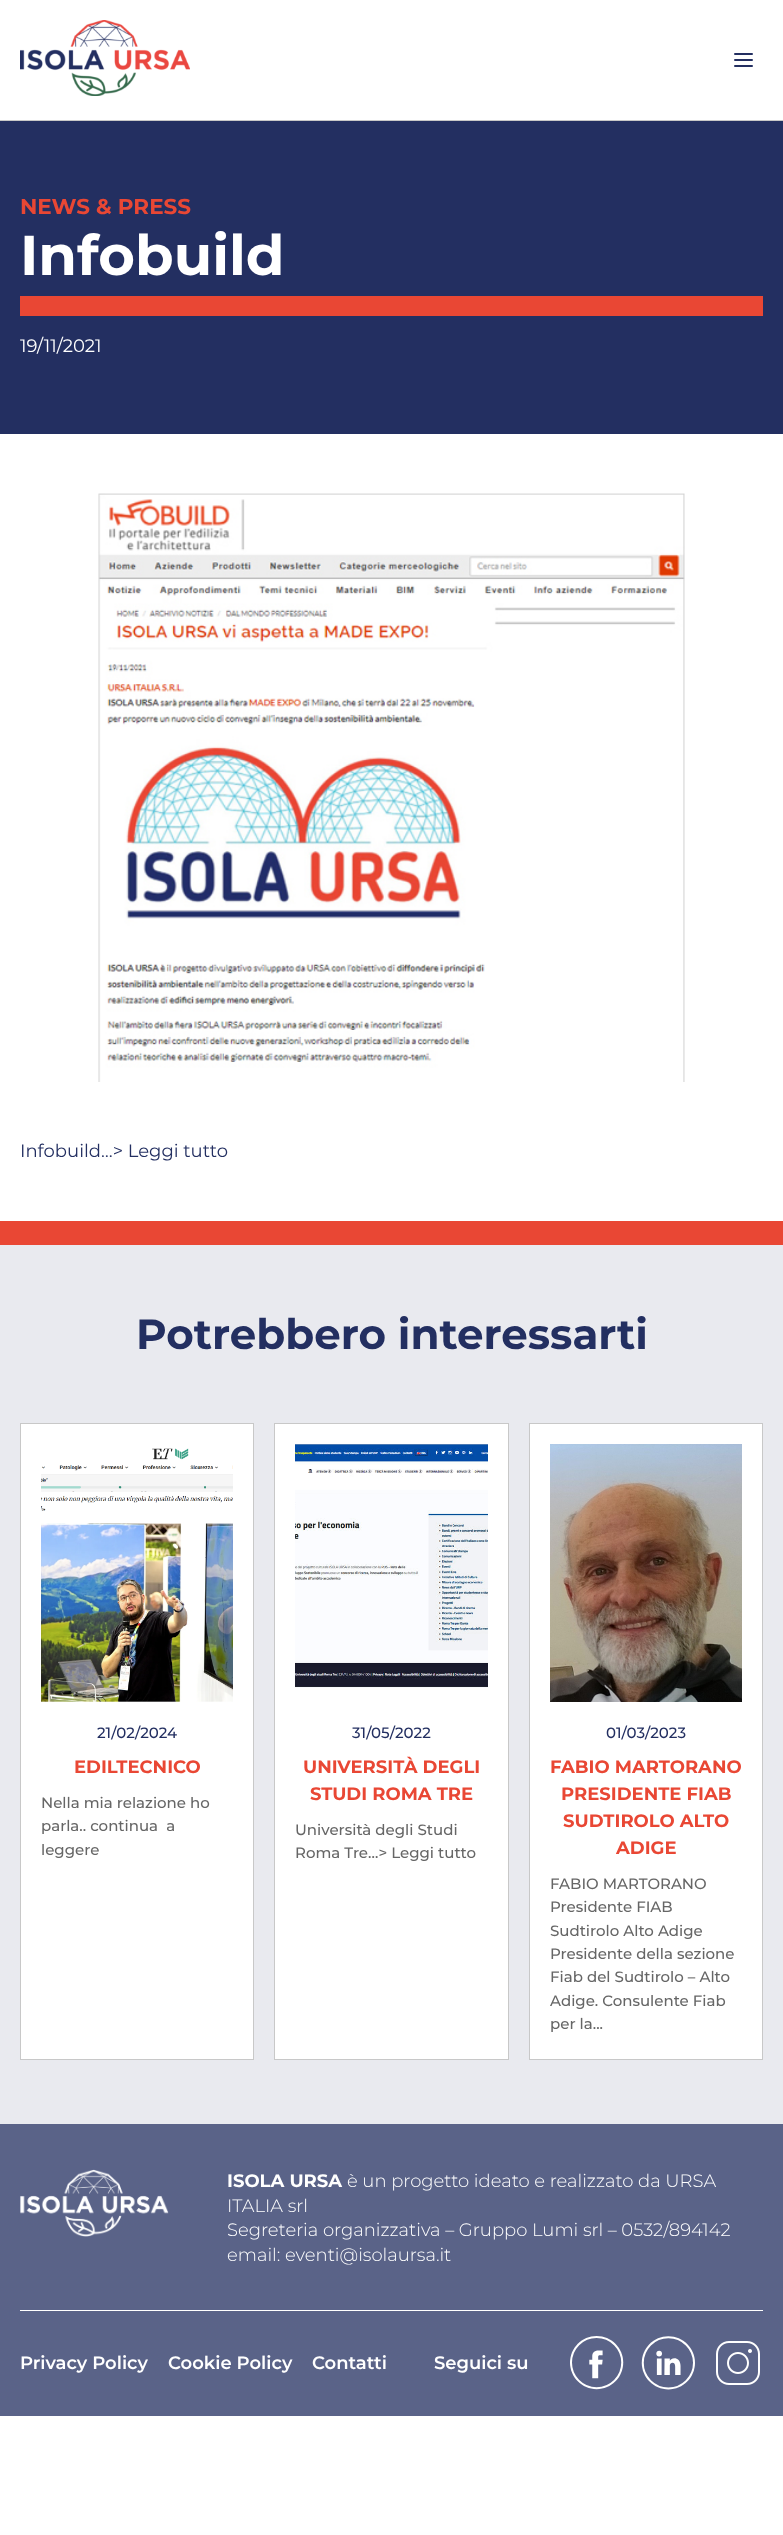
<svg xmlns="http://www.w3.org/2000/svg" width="783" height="2535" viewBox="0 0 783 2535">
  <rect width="100%" height="100%" fill="#ffffff"/>
  <rect x="0" y="120" width="783" height="1" fill="#c8c8c8"/>
  <image x="20" y="20" width="170" height="76" href="img1.png"/>
  <rect x="734" y="53" width="19" height="2" rx="1" fill="#232f61"/>
  <rect x="734" y="59" width="19" height="2" rx="1" fill="#232f61"/>
  <rect x="734" y="65" width="19" height="2" rx="1" fill="#232f61"/>
  <rect x="0" y="121" width="783" height="313" fill="#232f61"/>
  <text x="20" y="214" font-family="Montserrat" font-size="21.5" font-weight="bold" fill="#e94734">NEWS &amp; PRESS</text>
  <text x="20" y="275" font-family="Montserrat" font-size="56" font-weight="bold" fill="#ffffff">Infobuild</text>
  <rect x="20" y="296" width="743" height="20" fill="#e94734"/>
  <text x="20" y="352" font-family="Montserrat" font-size="18" fill="#ffffff">19/11/2021</text>
  <image x="98" y="493" width="587" height="589" href="img2.png"/>
  <text x="20" y="1157" font-family="Montserrat" font-size="18" fill="#232f61">Infobuild…&gt; Leggi tutto</text>
  <rect x="0" y="1245" width="783" height="879" fill="#e9eaef"/>
  <rect x="0" y="1221" width="783" height="24" fill="#e94734"/>
  <text x="136" y="1349" font-family="Montserrat" font-size="42" font-weight="bold" fill="#232f61">Potrebbero interessarti</text>
  <rect x="20.5" y="1423.5" width="233" height="636" fill="#ffffff" stroke="#c8c8c8"/>
  <image x="41" y="1448" width="192" height="254" href="img3.png"/>
  <text x="97" y="1738" font-family="Montserrat" font-size="15" font-weight="500" fill="#232f61">21/02/2024</text>
  <text x="74" y="1773" font-family="Montserrat" font-size="18" font-weight="bold" fill="#e94734">EDILTECNICO</text>
  <text x="41" y="1808" font-family="Montserrat" font-size="15" font-weight="500" fill="#666666">Nella mia relazione ho</text>
  <text x="41" y="1831" font-family="Montserrat" font-size="15" font-weight="500" fill="#666666" xml:space="preserve">parla.. continua  a</text>
  <text x="41" y="1855" font-family="Montserrat" font-size="15" font-weight="500" fill="#666666">leggere</text>
  <rect x="274.5" y="1423.5" width="234" height="636" fill="#ffffff" stroke="#c8c8c8"/>
  <image x="295" y="1444" width="193" height="244" href="img4.png"/>
  <text x="352" y="1738" font-family="Montserrat" font-size="15" font-weight="500" fill="#232f61">31/05/2022</text>
  <text x="303" y="1773" font-family="Montserrat" font-size="18" font-weight="bold" fill="#e94734">UNIVERSITÀ DEGLI</text>
  <text x="310" y="1800" font-family="Montserrat" font-size="18" font-weight="bold" fill="#e94734">STUDI ROMA TRE</text>
  <text x="295" y="1835" font-family="Montserrat" font-size="15" font-weight="500" fill="#666666">Università degli Studi</text>
  <text x="295" y="1858" font-family="Montserrat" font-size="15" font-weight="500" fill="#666666">Roma Tre…&gt; Leggi tutto</text>
  <rect x="529.5" y="1423.5" width="233" height="636" fill="#ffffff" stroke="#c8c8c8"/>
  <image x="550" y="1444" width="192" height="258" href="img5.png"/>
  <text x="606" y="1738" font-family="Montserrat" font-size="15" font-weight="500" fill="#232f61">01/03/2023</text>
  <text x="550" y="1773" font-family="Montserrat" font-size="18" font-weight="bold" fill="#e94734">FABIO MARTORANO</text>
  <text x="561" y="1800" font-family="Montserrat" font-size="18" font-weight="bold" fill="#e94734">PRESIDENTE FIAB</text>
  <text x="563" y="1827" font-family="Montserrat" font-size="18" font-weight="bold" fill="#e94734">SUDTIROLO ALTO</text>
  <text x="616" y="1854" font-family="Montserrat" font-size="18" font-weight="bold" fill="#e94734">ADIGE</text>
  <text x="550" y="1889" font-family="Montserrat" font-size="15" font-weight="500" fill="#666666">FABIO MARTORANO</text>
  <text x="550" y="1912" font-family="Montserrat" font-size="15" font-weight="500" fill="#666666">Presidente FIAB</text>
  <text x="550" y="1936" font-family="Montserrat" font-size="15" font-weight="500" fill="#666666">Sudtirolo Alto Adige</text>
  <text x="550" y="1959" font-family="Montserrat" font-size="15" font-weight="500" fill="#666666">Presidente della sezione</text>
  <text x="550" y="1982" font-family="Montserrat" font-size="15" font-weight="500" fill="#666666">Fiab del Sudtirolo – Alto</text>
  <text x="550" y="2006" font-family="Montserrat" font-size="15" font-weight="500" fill="#666666">Adige. Consulente Fiab</text>
  <text x="550" y="2029" font-family="Montserrat" font-size="15" font-weight="500" fill="#666666">per la...</text>
  <rect x="0" y="2124" width="783" height="292" fill="#5a6388"/>
  <rect x="20" y="2310" width="743" height="1" fill="#ffffff"/>
  <image x="20" y="2169" width="149" height="68" href="img6.png"/>
  <text x="227" y="2187" font-family="Montserrat" font-size="18" font-weight="bold" fill="#ffffff">ISOLA URSA</text>
  <text x="347" y="2187" font-family="Montserrat" font-size="18" font-weight="300" fill="#ffffff">è un progetto ideato e realizzato da URSA</text>
  <text x="227" y="2212" font-family="Montserrat" font-size="18" font-weight="300" fill="#ffffff">ITALIA srl</text>
  <text x="227" y="2236" font-family="Montserrat" font-size="18" font-weight="300" fill="#ffffff">Segreteria organizzativa – Gruppo Lumi srl – 0532/894142</text>
  <text x="227" y="2261" font-family="Montserrat" font-size="18" font-weight="300" fill="#ffffff">email: eventi@isolaursa.it</text>
  <text x="20" y="2369" font-family="Montserrat" font-size="18" font-weight="600" fill="#ffffff">Privacy Policy</text>
  <text x="168" y="2369" font-family="Montserrat" font-size="18" font-weight="600" fill="#ffffff">Cookie Policy</text>
  <text x="312" y="2369" font-family="Montserrat" font-size="18" font-weight="600" fill="#ffffff">Contatti</text>
  <text x="434" y="2369" font-family="Montserrat" font-size="18" font-weight="600" fill="#ffffff">Seguici su</text>
  <image x="570" y="2336" width="54" height="54" href="img7.png"/>
  <image x="641" y="2336" width="54" height="54" href="img8.png"/>
  <image x="716" y="2341" width="44" height="44" href="img9.png"/>
</svg>
